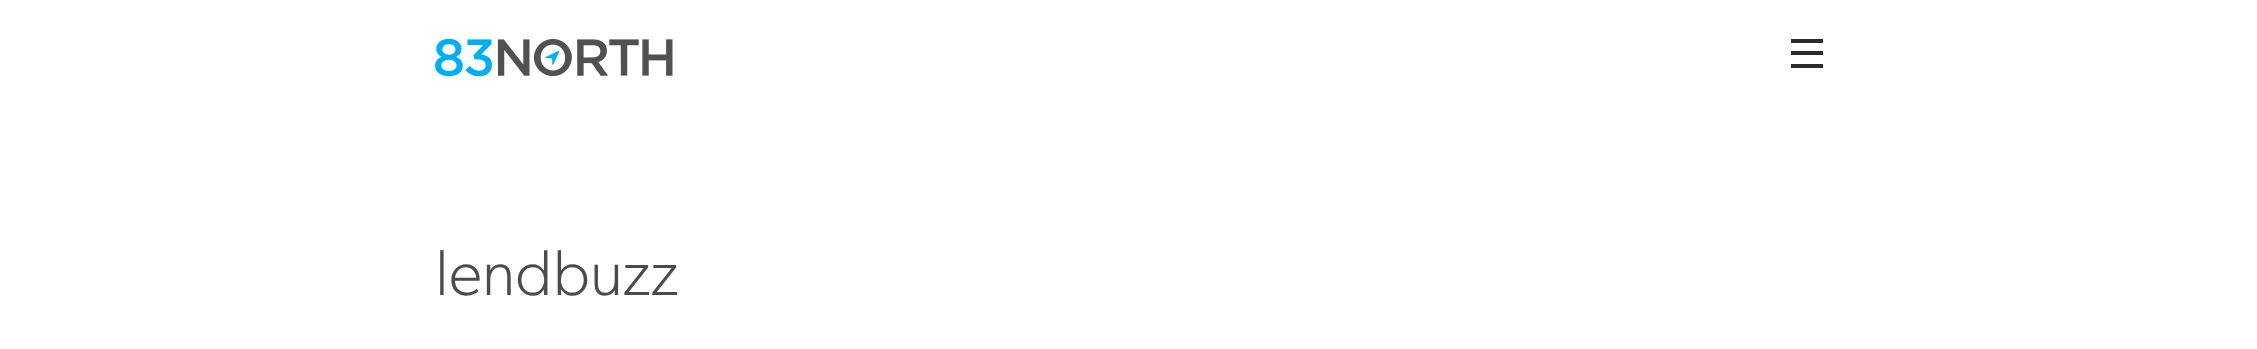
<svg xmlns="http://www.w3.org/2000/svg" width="2257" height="349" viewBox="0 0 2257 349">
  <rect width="100%" height="100%" fill="#ffffff"/>
  <image x="435" y="39" width="238" height="37" href="img1.png"/>
  <rect x="1791" y="39" width="32" height="4" fill="#2d2d2d"/>
  <rect x="1791" y="51" width="32" height="4" fill="#2d2d2d"/>
  <rect x="1791" y="64" width="32" height="4" fill="#2d2d2d"/>
  <text x="435" y="295" font-family="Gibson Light" font-size="65" font-weight="300" fill="#4c4c4c">lendbuzz</text>
</svg>
